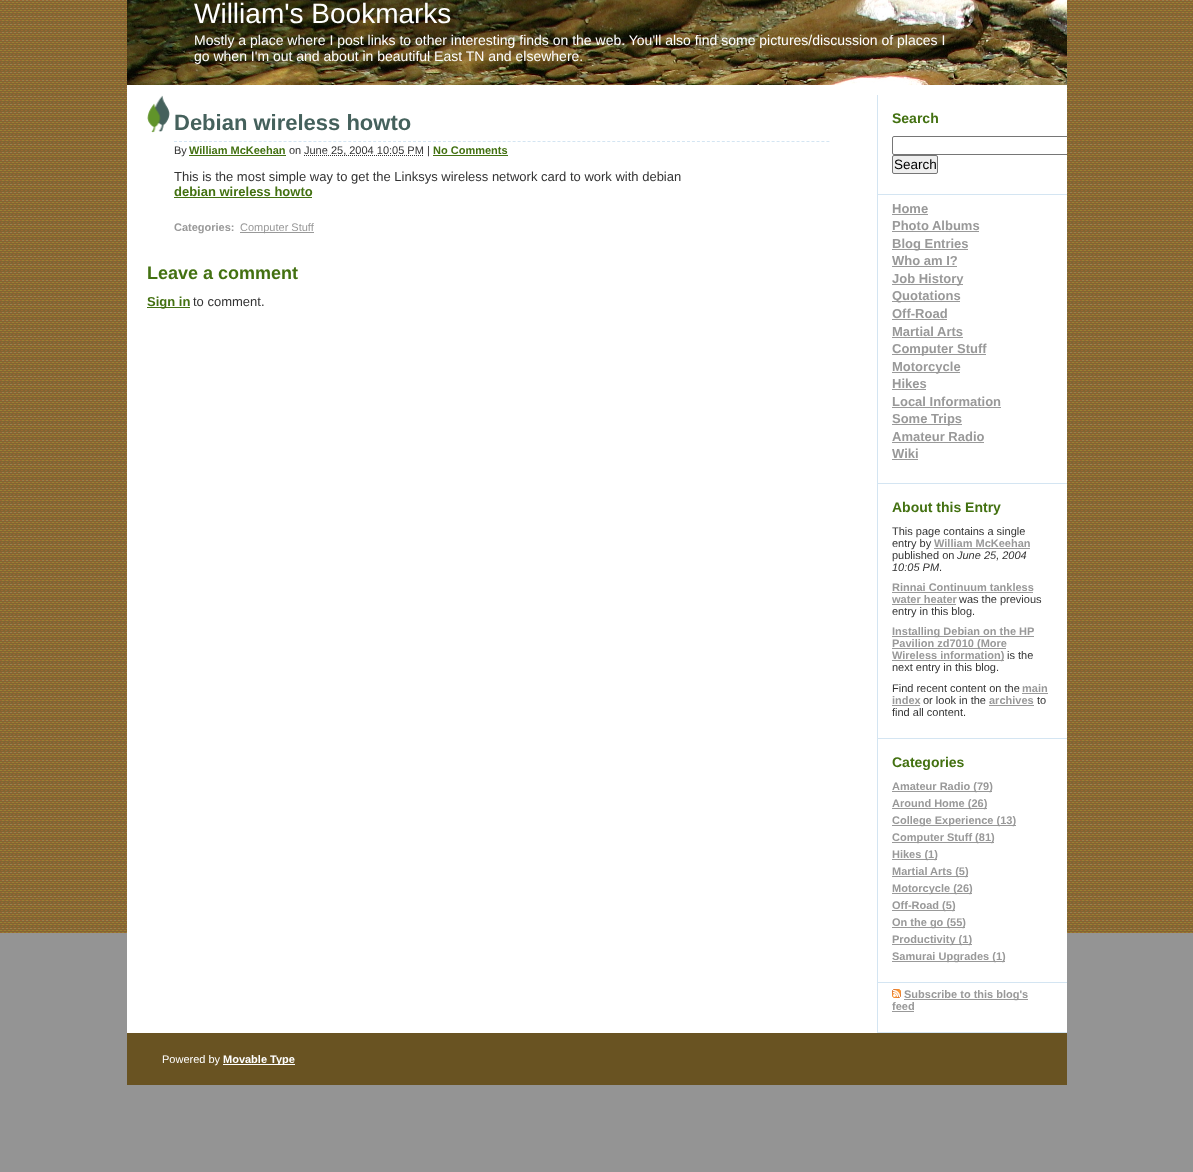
<svg xmlns="http://www.w3.org/2000/svg" width="1193" height="1172" viewBox="0 0 1193 1172">
  <defs>
    <clipPath id="clip1"><rect x="877" y="95" width="190" height="99"/></clipPath>
    <clipPath id="clip2"><rect x="147" y="1053" width="900" height="12"/></clipPath>
  </defs>
  <rect width="100%" height="100%" fill="#949494"/>
  <image x="0" y="0" width="1193" height="933" href="img1.png"/>
  <rect x="127" y="85" width="940" height="948" fill="#ffffff"/>
  <image x="127" y="0" width="940" height="85" href="img2.png"/>
  <text x="194" y="23" font-family="Liberation Sans" font-size="28" fill="#ffffff">William's Bookmarks</text>
  <text x="194" y="45" font-family="Liberation Sans" font-size="14" fill="#ffffff">Mostly a place where I post links to other interesting finds on the web. You'll also find some pictures/discussion of places I</text>
  <text x="194" y="61" font-family="Liberation Sans" font-size="14" fill="#ffffff">go when I'm out and about in beautiful East TN and elsewhere.</text>
  <rect x="877" y="95" width="1" height="938" fill="#d4e5f2"/>
  <image x="147" y="95" width="23" height="38" href="img3.png"/>
  <text x="174" y="130" font-family="Liberation Sans" font-size="22" font-weight="bold" fill="#45615c">Debian wireless howto</text>
  <path d="M174 141.5H830" fill="none" stroke="#d4e5f2" stroke-dasharray="3 1.98"/>
  <text x="174" y="154" font-family="Liberation Sans" font-size="11" fill="#333333">By</text>
  <rect x="189" y="155" width="97" height="1" fill="#437111"/>
  <text x="189" y="154" font-family="Liberation Sans" font-size="11" font-weight="bold" fill="#437111">William McKeehan</text>
  <text x="289" y="154" font-family="Liberation Sans" font-size="11" fill="#333333">on</text>
  <path d="M304 155.5H424" fill="none" stroke="#333333" stroke-dasharray="1 1"/>
  <text x="304" y="154" font-family="Liberation Sans" font-size="11" fill="#333333">June 25, 2004 10:05 PM |</text>
  <text x="433" y="154" font-family="Liberation Sans" font-size="11" font-weight="bold" fill="#437111">No Comments</text>
  <rect x="433" y="155" width="75" height="1" fill="#437111"/>
  <text x="174" y="181" font-family="Liberation Sans" font-size="13" fill="#333333">This is the most simple way to get the Linksys wireless network card to work with debian</text>
  <text x="174" y="196" font-family="Liberation Sans" font-size="13" font-weight="bold" fill="#437111">debian wireless howto</text>
  <rect x="174" y="197" width="138" height="1" fill="#437111"/>
  <text x="174" y="231" font-family="Liberation Sans" font-size="11" font-weight="bold" fill="#999999">Categories:</text>
  <rect x="240" y="232" width="74" height="1" fill="#999999"/>
  <text x="240" y="231" font-family="Liberation Sans" font-size="11" fill="#999999">Computer Stuff</text>
  <text x="147" y="279" font-family="Liberation Sans" font-size="18" font-weight="bold" fill="#437111">Leave a comment</text>
  <rect x="147" y="307" width="43" height="1" fill="#437111"/>
  <text x="147" y="306" font-family="Liberation Sans" font-size="13" font-weight="bold" fill="#437111">Sign in</text>
  <text x="193" y="306" font-family="Liberation Sans" font-size="13" fill="#333333">to comment.</text>
  <rect x="877" y="194" width="190" height="1" fill="#d4e5f2"/>
  <text x="892" y="123" font-family="Liberation Sans" font-size="14" font-weight="bold" fill="#437111">Search</text>
  <g clip-path="url(#clip1)">
    <rect x="892.5" y="136.5" width="180" height="18" rx="1.5" fill="none" stroke="#767676"/>
  </g>
  <rect x="892.5" y="155.5" width="45" height="18" rx="1.5" fill="#efefef" stroke="#767676"/>
  <text x="894" y="169" font-family="Liberation Sans" font-size="13.5" fill="#000000">Search</text>
  <rect x="877" y="483" width="190" height="1" fill="#d4e5f2"/>
  <text x="892" y="213" font-family="Liberation Sans" font-size="13" font-weight="bold" fill="#999999">Home</text>
  <rect x="892" y="214" width="36" height="1" fill="#999999"/>
  <text x="892" y="230" font-family="Liberation Sans" font-size="13" font-weight="bold" fill="#999999">Photo Albums</text>
  <rect x="892" y="231" width="87" height="1" fill="#999999"/>
  <rect x="892" y="249" width="76" height="1" fill="#999999"/>
  <text x="892" y="248" font-family="Liberation Sans" font-size="13" font-weight="bold" fill="#999999">Blog Entries</text>
  <text x="892" y="265" font-family="Liberation Sans" font-size="13" font-weight="bold" fill="#999999">Who am I?</text>
  <rect x="892" y="266" width="65" height="1" fill="#999999"/>
  <rect x="892" y="284" width="71" height="1" fill="#999999"/>
  <text x="892" y="283" font-family="Liberation Sans" font-size="13" font-weight="bold" fill="#999999">Job History</text>
  <rect x="892" y="301" width="68" height="1" fill="#999999"/>
  <text x="892" y="300" font-family="Liberation Sans" font-size="13" font-weight="bold" fill="#999999">Quotations</text>
  <text x="892" y="318" font-family="Liberation Sans" font-size="13" font-weight="bold" fill="#999999">Off-Road</text>
  <rect x="892" y="319" width="55" height="1" fill="#999999"/>
  <text x="892" y="336" font-family="Liberation Sans" font-size="13" font-weight="bold" fill="#999999">Martial Arts</text>
  <rect x="892" y="337" width="71" height="1" fill="#999999"/>
  <rect x="892" y="354" width="94" height="1" fill="#999999"/>
  <text x="892" y="353" font-family="Liberation Sans" font-size="13" font-weight="bold" fill="#999999">Computer Stuff</text>
  <rect x="892" y="372" width="68" height="1" fill="#999999"/>
  <text x="892" y="371" font-family="Liberation Sans" font-size="13" font-weight="bold" fill="#999999">Motorcycle</text>
  <text x="892" y="388" font-family="Liberation Sans" font-size="13" font-weight="bold" fill="#999999">Hikes</text>
  <rect x="892" y="389" width="34" height="1" fill="#999999"/>
  <text x="892" y="406" font-family="Liberation Sans" font-size="13" font-weight="bold" fill="#999999">Local Information</text>
  <rect x="892" y="407" width="109" height="1" fill="#999999"/>
  <rect x="892" y="424" width="70" height="1" fill="#999999"/>
  <text x="892" y="423" font-family="Liberation Sans" font-size="13" font-weight="bold" fill="#999999">Some Trips</text>
  <text x="892" y="441" font-family="Liberation Sans" font-size="13" font-weight="bold" fill="#999999">Amateur Radio</text>
  <rect x="892" y="442" width="92" height="1" fill="#999999"/>
  <text x="892" y="458" font-family="Liberation Sans" font-size="13" font-weight="bold" fill="#999999">Wiki</text>
  <rect x="892" y="459" width="26" height="1" fill="#999999"/>
  <rect x="877" y="738" width="190" height="1" fill="#d4e5f2"/>
  <text x="892" y="512" font-family="Liberation Sans" font-size="14" font-weight="bold" fill="#437111">About this Entry</text>
  <text x="892" y="535" font-family="Liberation Sans" font-size="11" fill="#333333">This page contains a single</text>
  <text x="892" y="547" font-family="Liberation Sans" font-size="11" fill="#333333">entry by</text>
  <text x="934" y="547" font-family="Liberation Sans" font-size="11" font-weight="bold" fill="#999999">William McKeehan</text>
  <rect x="934" y="548" width="96" height="1" fill="#999999"/>
  <text x="892" y="559" font-family="Liberation Sans" font-size="11" fill="#333333">published on</text>
  <text x="957" y="559" font-family="Liberation Sans" font-size="11" font-style="italic" fill="#333333">June 25, 2004</text>
  <text x="892" y="571" font-family="Liberation Sans" font-size="11" font-style="italic" fill="#333333">10:05 PM</text>
  <text x="939" y="571" font-family="Liberation Sans" font-size="11" fill="#333333">.</text>
  <text x="892" y="591" font-family="Liberation Sans" font-size="11" font-weight="bold" fill="#999999">Rinnai Continuum tankless</text>
  <rect x="892" y="592" width="141" height="1" fill="#999999"/>
  <text x="892" y="603" font-family="Liberation Sans" font-size="11" font-weight="bold" fill="#999999">water heater</text>
  <rect x="892" y="604" width="64" height="1" fill="#999999"/>
  <text x="959" y="603" font-family="Liberation Sans" font-size="11" fill="#333333">was the previous</text>
  <text x="892" y="615" font-family="Liberation Sans" font-size="11" fill="#333333">entry in this blog.</text>
  <rect x="892" y="636" width="142" height="1" fill="#999999"/>
  <text x="892" y="635" font-family="Liberation Sans" font-size="11" font-weight="bold" fill="#999999">Installing Debian on the HP</text>
  <rect x="892" y="648" width="114" height="1" fill="#999999"/>
  <text x="892" y="647" font-family="Liberation Sans" font-size="11" font-weight="bold" fill="#999999">Pavilion zd7010 (More</text>
  <rect x="892" y="660" width="112" height="1" fill="#999999"/>
  <text x="892" y="659" font-family="Liberation Sans" font-size="11" font-weight="bold" fill="#999999">Wireless information)</text>
  <text x="1007" y="659" font-family="Liberation Sans" font-size="11" fill="#333333">is the</text>
  <text x="892" y="671" font-family="Liberation Sans" font-size="11" fill="#333333">next entry in this blog.</text>
  <text x="892" y="692" font-family="Liberation Sans" font-size="11" fill="#333333">Find recent content on the</text>
  <text x="1022" y="692" font-family="Liberation Sans" font-size="11" font-weight="bold" fill="#999999">main</text>
  <rect x="1022" y="693" width="26" height="1" fill="#999999"/>
  <text x="892" y="704" font-family="Liberation Sans" font-size="11" font-weight="bold" fill="#999999">index</text>
  <rect x="892" y="705" width="28" height="1" fill="#999999"/>
  <text x="923" y="704" font-family="Liberation Sans" font-size="11" fill="#333333">or look in the</text>
  <text x="989" y="704" font-family="Liberation Sans" font-size="11" font-weight="bold" fill="#999999">archives</text>
  <rect x="989" y="705" width="45" height="1" fill="#999999"/>
  <text x="1037" y="704" font-family="Liberation Sans" font-size="11" fill="#333333">to</text>
  <text x="892" y="716" font-family="Liberation Sans" font-size="11" fill="#333333">find all content.</text>
  <rect x="877" y="982" width="190" height="1" fill="#d4e5f2"/>
  <text x="892" y="767" font-family="Liberation Sans" font-size="14" font-weight="bold" fill="#437111">Categories</text>
  <rect x="892" y="791" width="100" height="1" fill="#999999"/>
  <text x="892" y="790" font-family="Liberation Sans" font-size="11" font-weight="bold" fill="#999999">Amateur Radio (79)</text>
  <rect x="892" y="808" width="95" height="1" fill="#999999"/>
  <text x="892" y="807" font-family="Liberation Sans" font-size="11" font-weight="bold" fill="#999999">Around Home (26)</text>
  <rect x="892" y="825" width="124" height="1" fill="#999999"/>
  <text x="892" y="824" font-family="Liberation Sans" font-size="11" font-weight="bold" fill="#999999">College Experience (13)</text>
  <rect x="892" y="842" width="102" height="1" fill="#999999"/>
  <text x="892" y="841" font-family="Liberation Sans" font-size="11" font-weight="bold" fill="#999999">Computer Stuff (81)</text>
  <rect x="892" y="859" width="45" height="1" fill="#999999"/>
  <text x="892" y="858" font-family="Liberation Sans" font-size="11" font-weight="bold" fill="#999999">Hikes (1)</text>
  <rect x="892" y="876" width="76" height="1" fill="#999999"/>
  <text x="892" y="875" font-family="Liberation Sans" font-size="11" font-weight="bold" fill="#999999">Martial Arts (5)</text>
  <rect x="892" y="893" width="80" height="1" fill="#999999"/>
  <text x="892" y="892" font-family="Liberation Sans" font-size="11" font-weight="bold" fill="#999999">Motorcycle (26)</text>
  <rect x="892" y="910" width="63" height="1" fill="#999999"/>
  <text x="892" y="909" font-family="Liberation Sans" font-size="11" font-weight="bold" fill="#999999">Off-Road (5)</text>
  <rect x="892" y="927" width="73" height="1" fill="#999999"/>
  <text x="892" y="926" font-family="Liberation Sans" font-size="11" font-weight="bold" fill="#999999">On the go (55)</text>
  <rect x="892" y="944" width="80" height="1" fill="#999999"/>
  <text x="892" y="943" font-family="Liberation Sans" font-size="11" font-weight="bold" fill="#999999">Productivity (1)</text>
  <rect x="892" y="961" width="113" height="1" fill="#999999"/>
  <text x="892" y="960" font-family="Liberation Sans" font-size="11" font-weight="bold" fill="#999999">Samurai Upgrades (1)</text>
  <rect x="877" y="1032" width="190" height="1" fill="#d4e5f2"/>
  <image x="892" y="989" width="9" height="9" href="img4.png"/>
  <rect x="904" y="999" width="124" height="1" fill="#999999"/>
  <text x="904" y="998" font-family="Liberation Sans" font-size="11" font-weight="bold" fill="#999999">Subscribe to this blog's</text>
  <text x="892" y="1010" font-family="Liberation Sans" font-size="11" font-weight="bold" fill="#999999">feed</text>
  <rect x="892" y="1011" width="22" height="1" fill="#999999"/>
  <rect x="127" y="1033" width="940" height="52" fill="#695322"/>
  <text x="162" y="1063" font-family="Liberation Sans" font-size="11" fill="#ffffff">Powered by</text>
  <rect x="223" y="1064" width="72" height="1" fill="#ffffff"/>
  <g clip-path="url(#clip2)">
    <text x="223" y="1063" font-family="Liberation Sans" font-size="11" font-weight="bold" fill="#ffffff">Movable Type</text>
  </g>
</svg>
